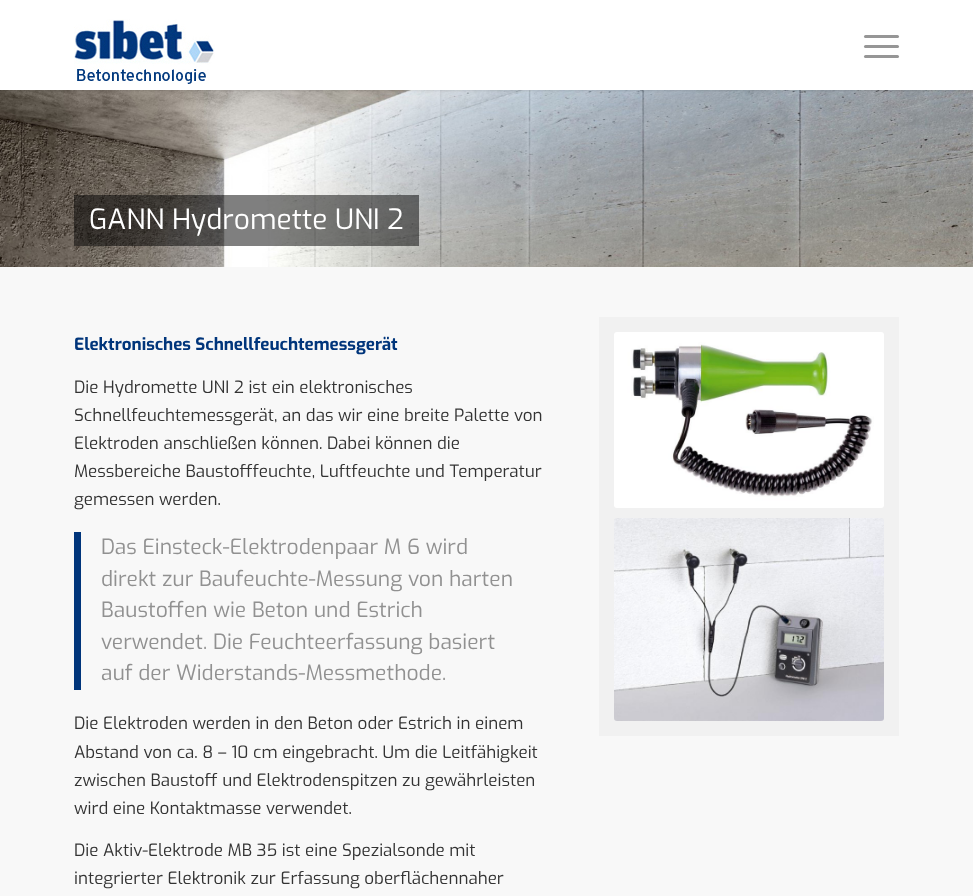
<svg xmlns="http://www.w3.org/2000/svg" width="973" height="896" viewBox="0 0 973 896">
  <defs>
    <filter id="blur1" x="-50%" y="-200%" width="200%" height="500%"><feGaussianBlur stdDeviation="1"/></filter>
  </defs>
  <rect width="100%" height="100%" fill="#ffffff"/>
  <image x="972" y="90" width="1" height="177" href="img1.png"/>
  <image x="0" y="90" width="973" height="177" href="img3.png"/>
  <rect x="-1" y="-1" width="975" height="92" fill="#000000" fill-opacity="0.1" filter="url(#blur1)"/>
  <rect x="0" y="0" width="973" height="90" fill="#ffffff"/>
  <image x="74" y="19" width="141" height="65" href="img2.png"/>
  <rect x="864" y="45" width="35" height="3" rx="1.5" fill="#969696"/>
  <rect x="864" y="35" width="35" height="3" rx="1.5" fill="#969696"/>
  <rect x="864" y="55" width="35" height="3" rx="1.5" fill="#969696"/>
  <rect x="74" y="195" width="345" height="51" fill="#000000" fill-opacity="0.5"/>
  <text x="89" y="229" font-family="Exo" font-size="28" fill="#ffffff">GANN Hydromette UNI 2</text>
  <rect x="0" y="267" width="973" height="629" fill="#f8f8f8"/>
  <text x="74" y="350" font-family="Exo" font-size="17" font-weight="bold" fill="#00357b">Elektronisches Schnellfeuchtemessgerät</text>
  <text x="74" y="393" font-family="Exo" font-size="17" fill="#333333">Die Hydromette UNI 2 ist ein elektronisches</text>
  <text x="74" y="421" font-family="Exo" font-size="17" fill="#333333">Schnellfeuchtemessgerät, an das wir eine breite Palette von</text>
  <text x="74" y="449" font-family="Exo" font-size="17" fill="#333333">Elektroden anschließen können. Dabei können die</text>
  <text x="74" y="477" font-family="Exo" font-size="17" fill="#333333">Messbereiche Baustofffeuchte, Luftfeuchte und Temperatur</text>
  <text x="74" y="505" font-family="Exo" font-size="17" fill="#333333">gemessen werden.</text>
  <rect x="74" y="532" width="7" height="158" fill="#00357b"/>
  <text x="101" y="554" font-family="Exo" font-size="21" fill="#919191">Das Einsteck-Elektrodenpaar M 6 wird</text>
  <text x="101" y="586" font-family="Exo" font-size="21" fill="#919191">direkt zur Baufeuchte-Messung von harten</text>
  <text x="101" y="617" font-family="Exo" font-size="21" fill="#919191">Baustoffen wie Beton und Estrich</text>
  <text x="101" y="649" font-family="Exo" font-size="21" fill="#919191">verwendet. Die Feuchteerfassung basiert</text>
  <text x="101" y="680" font-family="Exo" font-size="21" fill="#919191">auf der Widerstands-Messmethode.</text>
  <text x="74" y="729" font-family="Exo" font-size="17" fill="#333333">Die Elektroden werden in den Beton oder Estrich in einem</text>
  <text x="74" y="758" font-family="Exo" font-size="17" fill="#333333">Abstand von ca. 8 – 10 cm eingebracht. Um die Leitfähigkeit</text>
  <text x="74" y="786" font-family="Exo" font-size="17" fill="#333333">zwischen Baustoff und Elektrodenspitzen zu gewährleisten</text>
  <text x="74" y="814" font-family="Exo" font-size="17" fill="#333333">wird eine Kontaktmasse verwendet.</text>
  <text x="74" y="856" font-family="Exo" font-size="17" fill="#333333">Die Aktiv-Elektrode MB 35 ist eine Spezialsonde mit</text>
  <text x="74" y="884" font-family="Exo" font-size="17" fill="#333333">integrierter Elektronik zur Erfassung oberflächennaher</text>
  <rect x="599" y="317" width="300" height="419" fill="#f1f1f1"/>
  <image x="614" y="332" width="270" height="176" href="img4.png"/>
  <image x="614" y="518" width="270" height="203" href="img5.png"/>
</svg>
